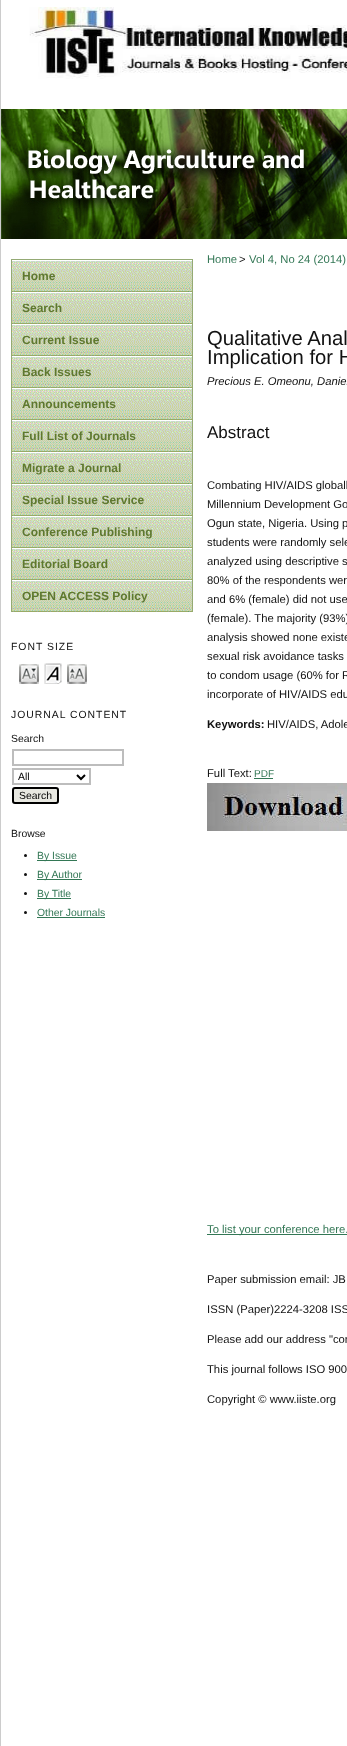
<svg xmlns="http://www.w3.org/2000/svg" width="347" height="1746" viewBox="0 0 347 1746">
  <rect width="100%" height="100%" fill="#ffffff"/>
  <rect x="0" y="0" width="1" height="1746" fill="#cccccc"/>
  <image x="29" y="7" width="318" height="72" href="img1.png"/>
  <image x="1" y="109" width="346" height="130" href="img2.png"/>
  <rect x="11" y="259" width="182" height="1" fill="#94aa74"/>
  <rect x="192" y="259" width="1" height="353" fill="#94aa74"/>
  <rect x="11" y="259" width="1" height="353" fill="#94aa74"/>
  <image x="12" y="261" width="180" height="31" href="img3.png"/>
  <text x="22" y="280" font-family="Liberation Sans" font-size="12" font-weight="bold" fill="#5e7830">Home</text>
  <image x="12" y="293" width="180" height="31" href="img3.png"/>
  <text x="22" y="312" font-family="Liberation Sans" font-size="12" font-weight="bold" fill="#5e7830">Search</text>
  <image x="12" y="325" width="180" height="31" href="img3.png"/>
  <text x="22" y="344" font-family="Liberation Sans" font-size="12" font-weight="bold" fill="#5e7830">Current Issue</text>
  <image x="12" y="357" width="180" height="31" href="img3.png"/>
  <text x="22" y="376" font-family="Liberation Sans" font-size="12" font-weight="bold" fill="#5e7830">Back Issues</text>
  <image x="12" y="389" width="180" height="31" href="img3.png"/>
  <text x="22" y="408" font-family="Liberation Sans" font-size="12" font-weight="bold" fill="#5e7830">Announcements</text>
  <image x="12" y="421" width="180" height="31" href="img3.png"/>
  <text x="22" y="440" font-family="Liberation Sans" font-size="12" font-weight="bold" fill="#5e7830">Full List of Journals</text>
  <image x="12" y="453" width="180" height="31" href="img3.png"/>
  <text x="22" y="472" font-family="Liberation Sans" font-size="12" font-weight="bold" fill="#5e7830">Migrate a Journal</text>
  <image x="12" y="485" width="180" height="31" href="img3.png"/>
  <text x="22" y="504" font-family="Liberation Sans" font-size="12" font-weight="bold" fill="#5e7830">Special Issue Service</text>
  <image x="12" y="517" width="180" height="31" href="img3.png"/>
  <text x="22" y="536" font-family="Liberation Sans" font-size="12" font-weight="bold" fill="#5e7830">Conference Publishing</text>
  <image x="12" y="549" width="180" height="31" href="img3.png"/>
  <text x="22" y="568" font-family="Liberation Sans" font-size="12" font-weight="bold" fill="#5e7830">Editorial Board</text>
  <image x="12" y="581" width="180" height="31" href="img3.png"/>
  <text x="22" y="600" font-family="Liberation Sans" font-size="12" font-weight="bold" fill="#5e7830">OPEN ACCESS Policy</text>
  <text x="11" y="650" font-family="Liberation Sans" font-size="10.4" letter-spacing="1" fill="#111111">FONT SIZE</text>
  <image x="19" y="664" width="20" height="20" href="img4.png"/>
  <image x="44" y="663" width="18" height="21" href="img5.png"/>
  <image x="67" y="664" width="20" height="20" href="img6.png"/>
  <text x="11" y="718" font-family="Liberation Sans" font-size="10.4" letter-spacing="1" fill="#111111">JOURNAL CONTENT</text>
  <text x="11" y="742" font-family="Liberation Sans" font-size="10.4" fill="#111111">Search</text>
  <rect x="13" y="750" width="110" height="15" fill="none" stroke="#bdbdbd" stroke-width="2"/>
  <rect x="13" y="769" width="77" height="15" fill="none" stroke="#bdbdbd" stroke-width="2"/>
  <path d="M77 775L81 779L85 775" fill="none" stroke="#000000" stroke-width="2"/>
  <text x="18" y="780" font-family="Liberation Sans" font-size="10.4" fill="#000000">All</text>
  <rect x="13" y="788" width="45" height="15" rx="2" fill="#e8e8e1" stroke="#000000" stroke-width="2"/>
  <text x="19" y="799" font-family="Liberation Sans" font-size="10.4" fill="#000000">Search</text>
  <text x="11" y="837" font-family="Liberation Sans" font-size="10.4" fill="#111111">Browse</text>
  <circle cx="25.5" cy="855.5" r="1.5" fill="#111111"/>
  <rect x="37" y="860" width="40" height="1" fill="#337755"/>
  <text x="37" y="859" font-family="Liberation Sans" font-size="10.4" fill="#337755">By Issue</text>
  <circle cx="25.5" cy="874.5" r="1.5" fill="#111111"/>
  <rect x="37" y="879" width="45" height="1" fill="#337755"/>
  <text x="37" y="878" font-family="Liberation Sans" font-size="10.4" fill="#337755">By Author</text>
  <circle cx="25.5" cy="893.5" r="1.5" fill="#111111"/>
  <rect x="37" y="898" width="34" height="1" fill="#337755"/>
  <text x="37" y="897" font-family="Liberation Sans" font-size="10.4" fill="#337755">By Title</text>
  <circle cx="25.5" cy="912.5" r="1.5" fill="#111111"/>
  <text x="37" y="916" font-family="Liberation Sans" font-size="10.4" fill="#337755">Other Journals</text>
  <rect x="37" y="917" width="68" height="1" fill="#337755"/>
  <text x="207" y="263" font-family="Liberation Sans" font-size="11.25" fill="#337755">Home</text>
  <text x="239" y="263" font-family="Liberation Sans" font-size="11.25" fill="#111111">&gt;</text>
  <text x="249" y="263" font-family="Liberation Sans" font-size="11.25" fill="#337755">Vol 4, No 24 (2014)</text>
  <text x="207" y="345" font-family="Liberation Sans" font-size="20.25" fill="#111111">Qualitative Anal</text>
  <text x="207" y="364" font-family="Liberation Sans" font-size="20.25" fill="#111111">Implication for H</text>
  <text x="207" y="385" font-family="Liberation Sans" font-size="11.25" font-style="italic" fill="#111111">Precious E. Omeonu, Daniel</text>
  <text x="207" y="438" font-family="Liberation Sans" font-size="17" fill="#111111">Abstract</text>
  <text x="207" y="489" font-family="Liberation Sans" font-size="11.25" fill="#111111">Combating HIV/AIDS globall</text>
  <text x="207" y="508" font-family="Liberation Sans" font-size="11.25" fill="#111111">Millennium Development Go</text>
  <text x="207" y="527" font-family="Liberation Sans" font-size="11.25" fill="#111111">Ogun state, Nigeria. Using p</text>
  <text x="207" y="546" font-family="Liberation Sans" font-size="11.25" fill="#111111">students were randomly sele</text>
  <text x="207" y="565" font-family="Liberation Sans" font-size="11.25" fill="#111111">analyzed using descriptive s</text>
  <text x="207" y="584" font-family="Liberation Sans" font-size="11.25" fill="#111111">80% of the respondents wer</text>
  <text x="207" y="603" font-family="Liberation Sans" font-size="11.25" fill="#111111">and 6% (female) did not use</text>
  <text x="207" y="622" font-family="Liberation Sans" font-size="11.25" fill="#111111">(female). The majority (93%)</text>
  <text x="207" y="641" font-family="Liberation Sans" font-size="11.25" fill="#111111">analysis showed none existe</text>
  <text x="207" y="660" font-family="Liberation Sans" font-size="11.25" fill="#111111">sexual risk avoidance tasks</text>
  <text x="207" y="679" font-family="Liberation Sans" font-size="11.25" fill="#111111">to condom usage (60% for R</text>
  <text x="207" y="698" font-family="Liberation Sans" font-size="11.25" fill="#111111">incorporate of HIV/AIDS edu</text>
  <text x="207" y="728" font-family="Liberation Sans" font-size="11.25" font-weight="bold" fill="#111111">Keywords:</text>
  <text x="267" y="728" font-family="Liberation Sans" font-size="11.25" fill="#111111">HIV/AIDS, Adole</text>
  <text x="207" y="777" font-family="Liberation Sans" font-size="11.25" fill="#111111">Full Text:</text>
  <text x="254" y="777" font-family="Liberation Sans" font-size="10" fill="#337755">PDF</text>
  <rect x="254" y="778" width="19" height="1" fill="#337755"/>
  <image x="207" y="783" width="140" height="48" href="img7.png"/>
  <rect x="207" y="1234" width="140" height="1" fill="#337755"/>
  <text x="207" y="1233" font-family="Liberation Sans" font-size="11.25" fill="#337755">To list your conference here.</text>
  <text x="207" y="1283" font-family="Liberation Sans" font-size="11.25" fill="#111111">Paper submission email: JB</text>
  <text x="207" y="1313" font-family="Liberation Sans" font-size="11.25" fill="#111111">ISSN (Paper)2224-3208 ISS</text>
  <text x="207" y="1343" font-family="Liberation Sans" font-size="11.25" fill="#111111">Please add our address "con</text>
  <text x="207" y="1373" font-family="Liberation Sans" font-size="11.25" fill="#111111">This journal follows ISO 900</text>
  <text x="207" y="1403" font-family="Liberation Sans" font-size="11.25" fill="#111111">Copyright © www.iiste.org</text>
</svg>
